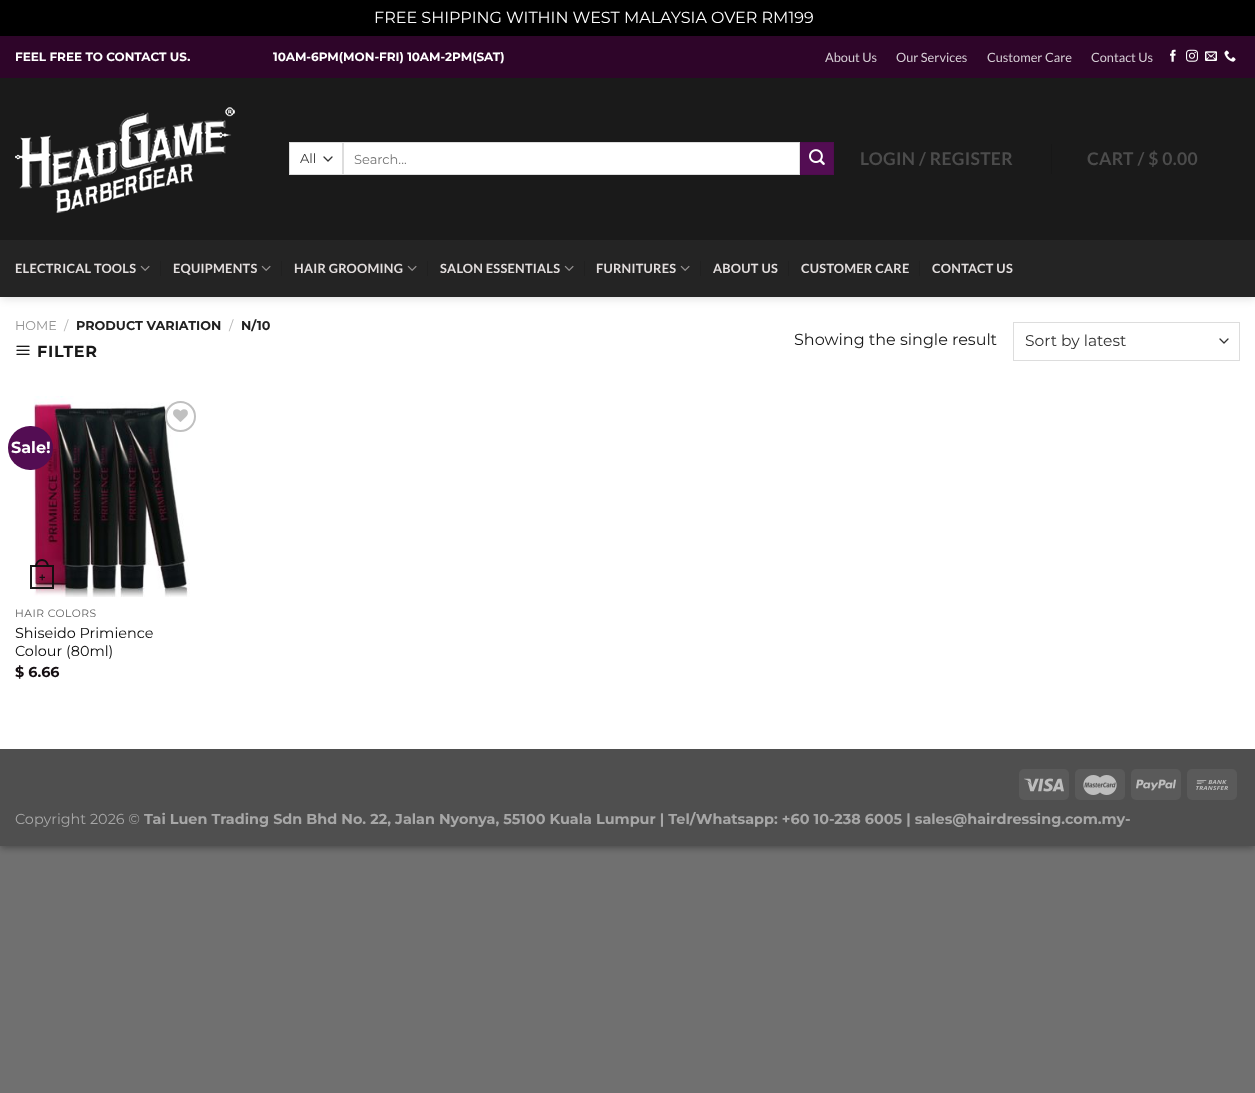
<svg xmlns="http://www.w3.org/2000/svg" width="1255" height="1093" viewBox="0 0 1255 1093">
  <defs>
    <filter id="blur1" x="-50%" y="-200%" width="200%" height="500%"><feGaussianBlur stdDeviation="3"/></filter>
    <filter id="blur2" x="-50%" y="-200%" width="200%" height="500%"><feGaussianBlur stdDeviation="5"/></filter>
  </defs>
  <rect width="100%" height="100%" fill="#707070"/>
  <rect x="0" y="3" width="1255" height="846" fill="#000000" fill-opacity="0.23" filter="url(#blur1)"/>
  <rect x="4" y="7" width="1247" height="838" fill="#000000" fill-opacity="0.16" filter="url(#blur1)"/>
  <rect x="0" y="0" width="1255" height="36" fill="#000000"/>
  <text x="374" y="23" font-family="Montserrat" font-size="16" fill="#ffffff">FREE SHIPPING WITHIN WEST MALAYSIA OVER RM199</text>
  <rect x="0" y="297" width="1255" height="452" fill="#ffffff"/>
  <rect x="1" y="37" width="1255" height="261" fill="#000000" fill-opacity="0.15" filter="url(#blur2)"/>
  <rect x="0" y="78" width="1255" height="162" fill="#1a1a1a"/>
  <rect x="0" y="36" width="1255" height="42" fill="#2e0529"/>
  <text x="15" y="61" font-family="Montserrat" font-size="12" font-weight="bold" fill="#ffffff">FEEL FREE TO CONTACT US.</text>
  <text x="273" y="61" font-family="Montserrat" font-size="12" font-weight="bold" fill="#ffffff">10AM-6PM(MON-FRI) 10AM-2PM(SAT)</text>
  <text x="825" y="62" font-family="Lato" font-size="12.75" fill="#d5cdd4">About Us</text>
  <text x="896" y="62" font-family="Lato" font-size="12.75" fill="#d5cdd4">Our Services</text>
  <text x="987" y="62" font-family="Lato" font-size="12.75" fill="#d5cdd4">Customer Care</text>
  <text x="1091" y="62" font-family="Lato" font-size="12.75" fill="#d5cdd4">Contact Us</text>
  <image x="1170" y="49" width="6" height="13" href="img1.png"/>
  <image x="1186" y="49" width="12" height="13" href="img2.png"/>
  <image x="1205" y="51" width="12" height="10" href="img3.png"/>
  <image x="1224" y="50" width="12" height="12" href="img4.png"/>
  <image x="15" y="107" width="220" height="106" href="img5.png"/>
  <rect x="290" y="143" width="52" height="31" fill="#ffffff"/>
  <path d="M324 157L328 161L332 157" fill="none" stroke="#333333" stroke-width="1.3" stroke-linecap="round" stroke-linejoin="round"/>
  <rect x="289.5" y="142.5" width="53" height="32" fill="none" stroke="#dddddd"/>
  <text x="300" y="163" font-family="Montserrat" font-size="13" fill="#333333">All</text>
  <rect x="343.5" y="142.5" width="456" height="32" fill="#ffffff" stroke="#dddddd"/>
  <text x="354" y="164" font-family="Montserrat" font-size="13" fill="#757575">Search...</text>
  <rect x="800.5" y="142.5" width="33" height="32" fill="#530d53" stroke="#4f0c4f"/>
  <image x="809" y="149" width="16" height="16" href="img6.png"/>
  <text x="860" y="165" font-family="Lato" font-size="17.5" font-weight="bold" letter-spacing="0.3" fill="#4c4c4c">LOGIN / REGISTER</text>
  <rect x="1051" y="144" width="1" height="30" fill="#171717"/>
  <text x="1087" y="165" font-family="Lato" font-size="17.5" font-weight="bold" letter-spacing="0.3" fill="#4c4c4c">CART / $ 0.00</text>
  <rect x="0" y="240" width="1255" height="57" fill="#242424"/>
  <text x="15" y="273" font-family="Lato" font-size="12.75" font-weight="bold" letter-spacing="0.25" fill="#e2dddd">ELECTRICAL TOOLS</text>
  <image x="140" y="265" width="10" height="6" href="img7.png"/>
  <rect x="160" y="261" width="1" height="15" fill="#202020"/>
  <text x="173" y="273" font-family="Lato" font-size="12.75" font-weight="bold" letter-spacing="0.25" fill="#e2dddd">EQUIPMENTS</text>
  <image x="261" y="265" width="10" height="6" href="img7.png"/>
  <rect x="281" y="261" width="1" height="15" fill="#202020"/>
  <text x="294" y="273" font-family="Lato" font-size="12.75" font-weight="bold" letter-spacing="0.25" fill="#e2dddd">HAIR GROOMING</text>
  <image x="407" y="265" width="10" height="6" href="img7.png"/>
  <rect x="427" y="261" width="1" height="15" fill="#202020"/>
  <text x="440" y="273" font-family="Lato" font-size="12.75" font-weight="bold" letter-spacing="0.25" fill="#e2dddd">SALON ESSENTIALS</text>
  <image x="564" y="265" width="10" height="6" href="img7.png"/>
  <rect x="584" y="261" width="1" height="15" fill="#202020"/>
  <text x="596" y="273" font-family="Lato" font-size="12.75" font-weight="bold" letter-spacing="0.25" fill="#e2dddd">FURNITURES</text>
  <image x="680" y="265" width="10" height="6" href="img7.png"/>
  <rect x="700" y="261" width="1" height="15" fill="#202020"/>
  <text x="713" y="273" font-family="Lato" font-size="12.75" font-weight="bold" letter-spacing="0.25" fill="#e2dddd">ABOUT US</text>
  <rect x="788" y="261" width="1" height="15" fill="#202020"/>
  <text x="801" y="273" font-family="Lato" font-size="12.75" font-weight="bold" letter-spacing="0.25" fill="#e2dddd">CUSTOMER CARE</text>
  <rect x="919" y="261" width="1" height="15" fill="#202020"/>
  <text x="932" y="273" font-family="Lato" font-size="12.75" font-weight="bold" letter-spacing="0.25" fill="#e2dddd">CONTACT US</text>
  <text x="15" y="330" font-family="Montserrat" font-size="12.75" fill="#949494">HOME</text>
  <text x="64" y="330" font-family="Montserrat" font-size="12.75" fill="#b2b2b2">/</text>
  <text x="76" y="330" font-family="Montserrat" font-size="12.75" font-weight="bold" fill="#222222">PRODUCT VARIATION</text>
  <text x="229" y="330" font-family="Montserrat" font-size="12.75" fill="#b2b2b2">/</text>
  <text x="241" y="330" font-family="Montserrat" font-size="12.75" font-weight="bold" fill="#222222">N/10</text>
  <image x="16" y="345" width="14" height="10" href="img8.png"/>
  <text x="37" y="357" font-family="Montserrat" font-size="16" font-weight="bold" letter-spacing="0.75" fill="#191919">FILTER</text>
  <text x="794" y="345" font-family="Montserrat" font-size="16" fill="#191919">Showing the single result</text>
  <path d="M1220 339L1224 343L1228 339" fill="none" stroke="#333333" stroke-width="1.3" stroke-linecap="round" stroke-linejoin="round"/>
  <rect x="1013.5" y="322.5" width="226" height="38" fill="none" stroke="#dddddd"/>
  <text x="1025" y="346" font-family="Montserrat" font-size="15.5" fill="#333333">Sort by latest</text>
  <image x="33" y="396" width="157" height="201" href="img9.png"/>
  <rect x="8" y="426" width="45" height="44" rx="22" fill="#530d53"/>
  <text x="11" y="453" font-family="Montserrat" font-size="16" font-weight="bold" fill="#ffffff">Sale!</text>
  <circle cx="180.5" cy="416.5" r="14.5" fill="none" stroke="#c0c0c0" stroke-width="2"/>
  <image x="173" y="409" width="15" height="13" href="img10.png"/>
  <rect x="31" y="566" width="22" height="22" fill="none" stroke="#0f0f0f" stroke-opacity="0.95" stroke-width="2"/>
  <path d="M42 559C46.5 559 49 563 49 567H35C35 563 37.5 559 42 559ZM42 561C45.5 561 47 564 47 567H37C37 564 38.5 561 42 561Z" fill="#0f0f0f" fill-opacity="0.95" fill-rule="evenodd"/>
  <text x="39" y="581" font-family="Liberation Sans" font-size="11" font-weight="bold" fill="#150f12">+</text>
  <text x="15" y="617" font-family="Montserrat" font-size="10.75" letter-spacing="0.5" fill="#5e5e5e">HAIR COLORS</text>
  <text x="15" y="638" font-family="Montserrat" font-size="14.4" fill="#0a0a0a">Shiseido Primience</text>
  <text x="15" y="656" font-family="Montserrat" font-size="14.4" fill="#0a0a0a">Colour (80ml)</text>
  <text x="15" y="677" font-family="Montserrat" font-size="14.4" font-weight="bold" fill="#150f12">$ 6.66</text>
  <rect x="0" y="749" width="1255" height="97" fill="#4f4f4f"/>
  <rect x="1019" y="769" width="50" height="31" rx="5" fill="#5a5a5a"/>
  <image x="1024" y="778" width="40" height="14" href="img11.png"/>
  <rect x="1075" y="769" width="50" height="31" rx="5" fill="#5a5a5a"/>
  <image x="1083" y="775" width="34" height="20" href="img12.png"/>
  <rect x="1131" y="769" width="50" height="31" rx="5" fill="#5a5a5a"/>
  <image x="1136" y="779" width="40" height="12" href="img13.png"/>
  <rect x="1187" y="769" width="50" height="31" rx="5" fill="#5a5a5a"/>
  <image x="1196" y="780" width="32" height="10" href="img14.png"/>
  <text x="15" y="824" font-family="Montserrat" font-size="14.4" fill="#a7a7a7">Copyright 2026 ©</text>
  <text x="144" y="824" font-family="Montserrat" font-size="14.4" font-weight="bold" fill="#a7a7a7">Tai Luen Trading Sdn Bhd No. 22, Jalan Nyonya, 55100 Kuala Lumpur | Tel/Whatsapp: +60 10-238 6005 | sales@hairdressing.com.my-</text>
</svg>
